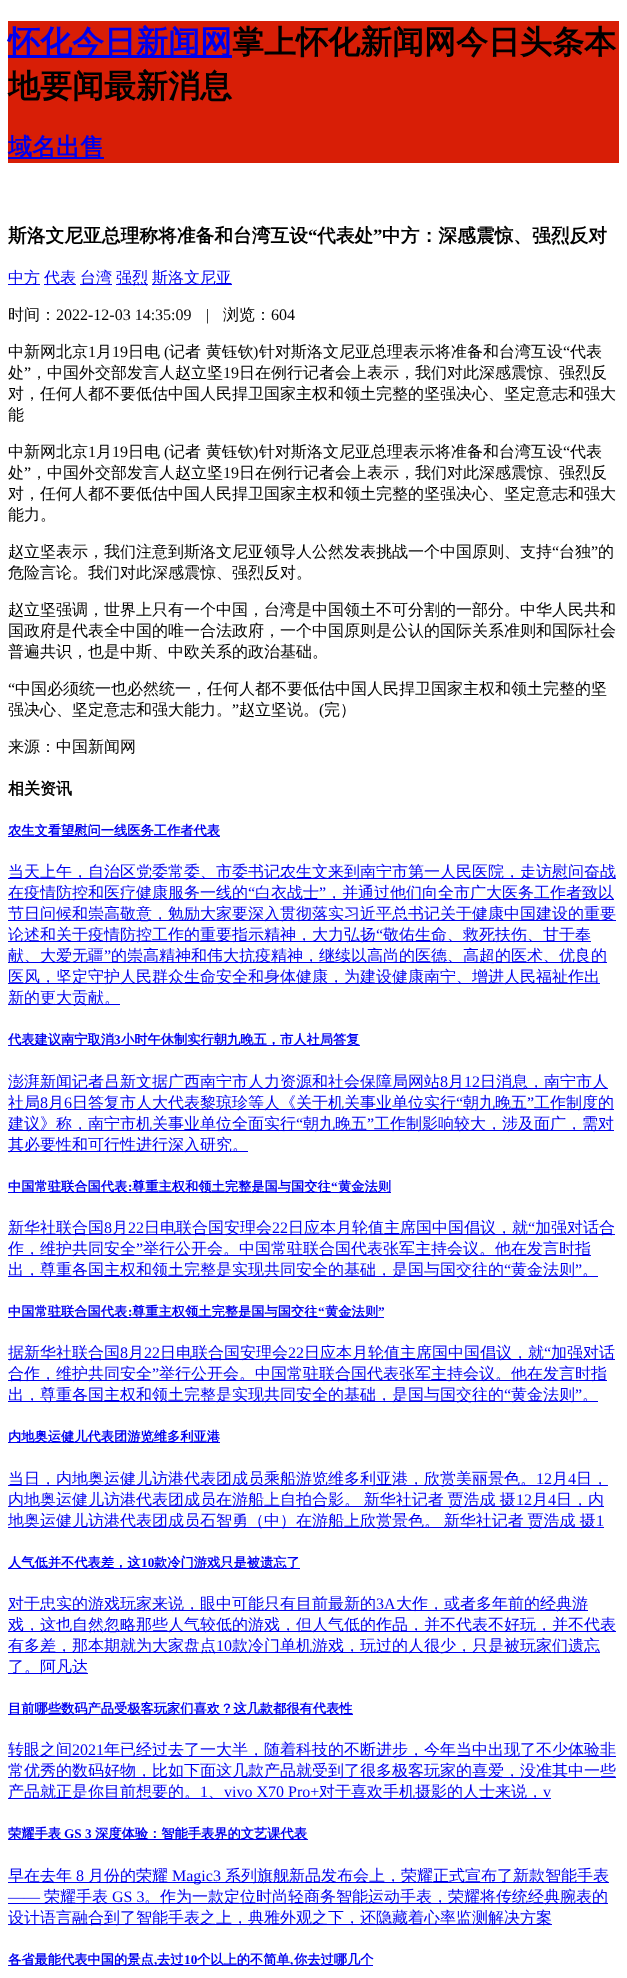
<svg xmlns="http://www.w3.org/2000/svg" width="627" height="1978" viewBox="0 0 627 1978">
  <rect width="100%" height="100%" fill="#ffffff"/>
  <rect x="8" y="21" width="611" height="142" fill="#d81e06"/>
  <rect x="8" y="55" width="224" height="3" fill="#0000ee"/>
  <text x="8" y="53" font-family="WenQuanYi Zen Hei" font-size="32" font-weight="bold" fill="#0000ee">怀化今日新闻网</text>
  <text x="232" y="53" font-family="WenQuanYi Zen Hei" font-size="32" font-weight="bold" fill="#000000">掌上怀化新闻网今日头条本</text>
  <text x="8" y="97" font-family="WenQuanYi Zen Hei" font-size="32" font-weight="bold" fill="#000000">地要闻最新消息</text>
  <rect x="8" y="157" width="96" height="2" fill="#0000ee"/>
  <text x="8" y="155" font-family="WenQuanYi Zen Hei" font-size="24" font-weight="bold" fill="#0000ee">域名出售</text>
  <text x="8" y="242" font-family="WenQuanYi Zen Hei" font-size="18.75" font-weight="bold" fill="#000000">斯洛文尼亚总理称将准备和台湾互设</text>
  <text x="308" y="242" font-family="Liberation Serif" font-size="18.75" font-weight="bold" fill="#000000">“</text>
  <text x="317" y="242" font-family="WenQuanYi Zen Hei" font-size="18.75" font-weight="bold" fill="#000000">代表处</text>
  <text x="373" y="242" font-family="Liberation Serif" font-size="18.75" font-weight="bold" fill="#000000">”</text>
  <text x="382" y="242" font-family="WenQuanYi Zen Hei" font-size="18.75" font-weight="bold" fill="#000000">中方：深感震惊、强烈反对</text>
  <rect x="8" y="284" width="32" height="1" fill="#0000ee"/>
  <text x="8" y="283" font-family="WenQuanYi Zen Hei" font-size="16" font-weight="500" fill="#0000ee">中方</text>
  <rect x="44" y="284" width="32" height="1" fill="#0000ee"/>
  <text x="44" y="283" font-family="WenQuanYi Zen Hei" font-size="16" font-weight="500" fill="#0000ee">代表</text>
  <rect x="80" y="284" width="32" height="1" fill="#0000ee"/>
  <text x="80" y="283" font-family="WenQuanYi Zen Hei" font-size="16" font-weight="500" fill="#0000ee">台湾</text>
  <rect x="116" y="284" width="32" height="1" fill="#0000ee"/>
  <text x="116" y="283" font-family="WenQuanYi Zen Hei" font-size="16" font-weight="500" fill="#0000ee">强烈</text>
  <rect x="152" y="284" width="80" height="1" fill="#0000ee"/>
  <text x="152" y="283" font-family="WenQuanYi Zen Hei" font-size="16" font-weight="500" fill="#0000ee">斯洛文尼亚</text>
  <text x="8" y="320" font-family="WenQuanYi Zen Hei" font-size="16" font-weight="500" fill="#000000">时间：</text>
  <text x="56" y="320" font-family="Liberation Serif" font-size="16" fill="#000000">2022-12-03 14:35:09</text>
  <text x="206" y="320" font-family="Liberation Serif" font-size="16" fill="#000000">|</text>
  <text x="223" y="320" font-family="WenQuanYi Zen Hei" font-size="16" font-weight="500" fill="#000000">浏览：</text>
  <text x="271" y="320" font-family="Liberation Serif" font-size="16" fill="#000000">604</text>
  <text x="8" y="357" font-family="WenQuanYi Zen Hei" font-size="16" font-weight="500" fill="#000000">中新网北京</text>
  <text x="88" y="357" font-family="Liberation Serif" font-size="16" fill="#000000">1</text>
  <text x="96" y="357" font-family="WenQuanYi Zen Hei" font-size="16" font-weight="500" fill="#000000">月</text>
  <text x="112" y="357" font-family="Liberation Serif" font-size="16" fill="#000000">19</text>
  <text x="128" y="357" font-family="WenQuanYi Zen Hei" font-size="16" font-weight="500" fill="#000000">日电</text>
  <text x="164" y="357" font-family="Liberation Serif" font-size="16" fill="#000000">(</text>
  <text x="169" y="357" font-family="WenQuanYi Zen Hei" font-size="16" font-weight="500" fill="#000000">记者 黄钰钦</text>
  <text x="253" y="357" font-family="Liberation Serif" font-size="16" fill="#000000">)</text>
  <text x="259" y="357" font-family="WenQuanYi Zen Hei" font-size="16" font-weight="500" fill="#000000">针对斯洛文尼亚总理表示将准备和台湾互设</text>
  <text x="563" y="357" font-family="Liberation Serif" font-size="16" fill="#000000">“</text>
  <text x="570" y="357" font-family="WenQuanYi Zen Hei" font-size="16" font-weight="500" fill="#000000">代表</text>
  <text x="8" y="378" font-family="WenQuanYi Zen Hei" font-size="16" font-weight="500" fill="#000000">处</text>
  <text x="24" y="378" font-family="Liberation Serif" font-size="16" fill="#000000">”</text>
  <text x="31" y="378" font-family="WenQuanYi Zen Hei" font-size="16" font-weight="500" fill="#000000">，中国外交部发言人赵立坚</text>
  <text x="223" y="378" font-family="Liberation Serif" font-size="16" fill="#000000">19</text>
  <text x="239" y="378" font-family="WenQuanYi Zen Hei" font-size="16" font-weight="500" fill="#000000">日在例行记者会上表示，我们对此深感震惊、强烈反</text>
  <text x="8" y="399" font-family="WenQuanYi Zen Hei" font-size="16" font-weight="500" fill="#000000">对，任何人都不要低估中国人民捍卫国家主权和领土完整的坚强决心、坚定意志和强大</text>
  <text x="8" y="420" font-family="WenQuanYi Zen Hei" font-size="16" font-weight="500" fill="#000000">能</text>
  <text x="8" y="457" font-family="WenQuanYi Zen Hei" font-size="16" font-weight="500" fill="#000000">中新网北京</text>
  <text x="88" y="457" font-family="Liberation Serif" font-size="16" fill="#000000">1</text>
  <text x="96" y="457" font-family="WenQuanYi Zen Hei" font-size="16" font-weight="500" fill="#000000">月</text>
  <text x="112" y="457" font-family="Liberation Serif" font-size="16" fill="#000000">19</text>
  <text x="128" y="457" font-family="WenQuanYi Zen Hei" font-size="16" font-weight="500" fill="#000000">日电</text>
  <text x="164" y="457" font-family="Liberation Serif" font-size="16" fill="#000000">(</text>
  <text x="169" y="457" font-family="WenQuanYi Zen Hei" font-size="16" font-weight="500" fill="#000000">记者 黄钰钦</text>
  <text x="253" y="457" font-family="Liberation Serif" font-size="16" fill="#000000">)</text>
  <text x="259" y="457" font-family="WenQuanYi Zen Hei" font-size="16" font-weight="500" fill="#000000">针对斯洛文尼亚总理表示将准备和台湾互设</text>
  <text x="563" y="457" font-family="Liberation Serif" font-size="16" fill="#000000">“</text>
  <text x="570" y="457" font-family="WenQuanYi Zen Hei" font-size="16" font-weight="500" fill="#000000">代表</text>
  <text x="8" y="478" font-family="WenQuanYi Zen Hei" font-size="16" font-weight="500" fill="#000000">处</text>
  <text x="24" y="478" font-family="Liberation Serif" font-size="16" fill="#000000">”</text>
  <text x="31" y="478" font-family="WenQuanYi Zen Hei" font-size="16" font-weight="500" fill="#000000">，中国外交部发言人赵立坚</text>
  <text x="223" y="478" font-family="Liberation Serif" font-size="16" fill="#000000">19</text>
  <text x="239" y="478" font-family="WenQuanYi Zen Hei" font-size="16" font-weight="500" fill="#000000">日在例行记者会上表示，我们对此深感震惊、强烈反</text>
  <text x="8" y="499" font-family="WenQuanYi Zen Hei" font-size="16" font-weight="500" fill="#000000">对，任何人都不要低估中国人民捍卫国家主权和领土完整的坚强决心、坚定意志和强大</text>
  <text x="8" y="520" font-family="WenQuanYi Zen Hei" font-size="16" font-weight="500" fill="#000000">能力。</text>
  <text x="8" y="557" font-family="WenQuanYi Zen Hei" font-size="16" font-weight="500" fill="#000000">赵立坚表示，我们注意到斯洛文尼亚领导人公然发表挑战一个中国原则、支持</text>
  <text x="552" y="557" font-family="Liberation Serif" font-size="16" fill="#000000">“</text>
  <text x="559" y="557" font-family="WenQuanYi Zen Hei" font-size="16" font-weight="500" fill="#000000">台独</text>
  <text x="591" y="557" font-family="Liberation Serif" font-size="16" fill="#000000">”</text>
  <text x="598" y="557" font-family="WenQuanYi Zen Hei" font-size="16" font-weight="500" fill="#000000">的</text>
  <text x="8" y="578" font-family="WenQuanYi Zen Hei" font-size="16" font-weight="500" fill="#000000">危险言论。我们对此深感震惊、强烈反对。</text>
  <text x="8" y="615" font-family="WenQuanYi Zen Hei" font-size="16" font-weight="500" fill="#000000">赵立坚强调，世界上只有一个中国，台湾是中国领土不可分割的一部分。中华人民共和</text>
  <text x="8" y="636" font-family="WenQuanYi Zen Hei" font-size="16" font-weight="500" fill="#000000">国政府是代表全中国的唯一合法政府，一个中国原则是公认的国际关系准则和国际社会</text>
  <text x="8" y="657" font-family="WenQuanYi Zen Hei" font-size="16" font-weight="500" fill="#000000">普遍共识，也是中斯、中欧关系的政治基础。</text>
  <text x="8" y="694" font-family="Liberation Serif" font-size="16" fill="#000000">“</text>
  <text x="15" y="694" font-family="WenQuanYi Zen Hei" font-size="16" font-weight="500" fill="#000000">中国必须统一也必然统一，任何人都不要低估中国人民捍卫国家主权和领土完整的坚</text>
  <text x="8" y="715" font-family="WenQuanYi Zen Hei" font-size="16" font-weight="500" fill="#000000">强决心、坚定意志和强大能力。</text>
  <text x="232" y="715" font-family="Liberation Serif" font-size="16" fill="#000000">”</text>
  <text x="239" y="715" font-family="WenQuanYi Zen Hei" font-size="16" font-weight="500" fill="#000000">赵立坚说。</text>
  <text x="319" y="715" font-family="Liberation Serif" font-size="16" fill="#000000">(</text>
  <text x="324" y="715" font-family="WenQuanYi Zen Hei" font-size="16" font-weight="500" fill="#000000">完）</text>
  <text x="8" y="752" font-family="WenQuanYi Zen Hei" font-size="16" font-weight="500" fill="#000000">来源：中国新闻网</text>
  <text x="8" y="794" font-family="WenQuanYi Zen Hei" font-size="16" font-weight="bold" fill="#000000">相关资讯</text>
  <rect x="8" y="836" width="212" height="1" fill="#0000ee"/>
  <text x="8" y="835" font-family="WenQuanYi Zen Hei" font-size="13.25" font-weight="bold" fill="#0000ee">农生文看望慰问一线医务工作者代表</text>
  <rect x="8" y="878" width="608" height="1" fill="#0000ee"/>
  <text x="8" y="877" font-family="WenQuanYi Zen Hei" font-size="16" font-weight="500" fill="#0000ee">当天上午，自治区党委常委、市委书记农生文来到南宁市第一人民医院，走访慰问奋战</text>
  <rect x="8" y="899" width="606" height="1" fill="#0000ee"/>
  <text x="8" y="898" font-family="WenQuanYi Zen Hei" font-size="16" font-weight="500" fill="#0000ee">在疫情防控和医疗健康服务一线的</text>
  <text x="248" y="898" font-family="Liberation Serif" font-size="16" fill="#0000ee">“</text>
  <text x="255" y="898" font-family="WenQuanYi Zen Hei" font-size="16" font-weight="500" fill="#0000ee">白衣战士</text>
  <text x="319" y="898" font-family="Liberation Serif" font-size="16" fill="#0000ee">”</text>
  <text x="326" y="898" font-family="WenQuanYi Zen Hei" font-size="16" font-weight="500" fill="#0000ee">，并通过他们向全市广大医务工作者致以</text>
  <rect x="8" y="920" width="608" height="1" fill="#0000ee"/>
  <text x="8" y="919" font-family="WenQuanYi Zen Hei" font-size="16" font-weight="500" fill="#0000ee">节日问候和崇高敬意，勉励大家要深入贯彻落实习近平总书记关于健康中国建设的重要</text>
  <rect x="8" y="941" width="583" height="1" fill="#0000ee"/>
  <text x="8" y="940" font-family="WenQuanYi Zen Hei" font-size="16" font-weight="500" fill="#0000ee">论述和关于疫情防控工作的重要指示精神，大力弘扬</text>
  <text x="376" y="940" font-family="Liberation Serif" font-size="16" fill="#0000ee">“</text>
  <text x="383" y="940" font-family="WenQuanYi Zen Hei" font-size="16" font-weight="500" fill="#0000ee">敬佑生命、救死扶伤、甘于奉</text>
  <rect x="8" y="962" width="599" height="1" fill="#0000ee"/>
  <text x="8" y="961" font-family="WenQuanYi Zen Hei" font-size="16" font-weight="500" fill="#0000ee">献、大爱无疆</text>
  <text x="104" y="961" font-family="Liberation Serif" font-size="16" fill="#0000ee">”</text>
  <text x="111" y="961" font-family="WenQuanYi Zen Hei" font-size="16" font-weight="500" fill="#0000ee">的崇高精神和伟大抗疫精神，继续以高尚的医德、高超的医术、优良的</text>
  <rect x="8" y="983" width="592" height="1" fill="#0000ee"/>
  <text x="8" y="982" font-family="WenQuanYi Zen Hei" font-size="16" font-weight="500" fill="#0000ee">医风，坚定守护人民群众生命安全和身体健康，为建设健康南宁、增进人民福祉作出</text>
  <rect x="8" y="1004" width="112" height="1" fill="#0000ee"/>
  <text x="8" y="1003" font-family="WenQuanYi Zen Hei" font-size="16" font-weight="500" fill="#0000ee">新的更大贡献。</text>
  <rect x="8" y="1045" width="352" height="1" fill="#0000ee"/>
  <text x="8" y="1044" font-family="WenQuanYi Zen Hei" font-size="13.25" font-weight="bold" fill="#0000ee">代表建议南宁取消</text>
  <text x="114" y="1044" font-family="Liberation Serif" font-size="13.25" font-weight="bold" fill="#0000ee">3</text>
  <text x="121" y="1044" font-family="WenQuanYi Zen Hei" font-size="13.25" font-weight="bold" fill="#0000ee">小时午休制实行朝九晚五，市人社局答复</text>
  <rect x="8" y="1088" width="600" height="1" fill="#0000ee"/>
  <text x="8" y="1087" font-family="WenQuanYi Zen Hei" font-size="16" font-weight="500" fill="#0000ee">澎湃新闻记者吕新文据广西南宁市人力资源和社会保障局网站</text>
  <text x="440" y="1087" font-family="Liberation Serif" font-size="16" fill="#0000ee">8</text>
  <text x="448" y="1087" font-family="WenQuanYi Zen Hei" font-size="16" font-weight="500" fill="#0000ee">月</text>
  <text x="464" y="1087" font-family="Liberation Serif" font-size="16" fill="#0000ee">12</text>
  <text x="480" y="1087" font-family="WenQuanYi Zen Hei" font-size="16" font-weight="500" fill="#0000ee">日消息，南宁市人</text>
  <rect x="8" y="1109" width="606" height="1" fill="#0000ee"/>
  <text x="8" y="1108" font-family="WenQuanYi Zen Hei" font-size="16" font-weight="500" fill="#0000ee">社局</text>
  <text x="40" y="1108" font-family="Liberation Serif" font-size="16" fill="#0000ee">8</text>
  <text x="48" y="1108" font-family="WenQuanYi Zen Hei" font-size="16" font-weight="500" fill="#0000ee">月</text>
  <text x="64" y="1108" font-family="Liberation Serif" font-size="16" fill="#0000ee">6</text>
  <text x="72" y="1108" font-family="WenQuanYi Zen Hei" font-size="16" font-weight="500" fill="#0000ee">日答复市人大代表黎琼珍等人《关于机关事业单位实行</text>
  <text x="456" y="1108" font-family="Liberation Serif" font-size="16" fill="#0000ee">“</text>
  <text x="463" y="1108" font-family="WenQuanYi Zen Hei" font-size="16" font-weight="500" fill="#0000ee">朝九晚五</text>
  <text x="527" y="1108" font-family="Liberation Serif" font-size="16" fill="#0000ee">”</text>
  <text x="534" y="1108" font-family="WenQuanYi Zen Hei" font-size="16" font-weight="500" fill="#0000ee">工作制度的</text>
  <rect x="8" y="1130" width="606" height="1" fill="#0000ee"/>
  <text x="8" y="1129" font-family="WenQuanYi Zen Hei" font-size="16" font-weight="500" fill="#0000ee">建议》称，南宁市机关事业单位全面实行</text>
  <text x="296" y="1129" font-family="Liberation Serif" font-size="16" fill="#0000ee">“</text>
  <text x="303" y="1129" font-family="WenQuanYi Zen Hei" font-size="16" font-weight="500" fill="#0000ee">朝九晚五</text>
  <text x="367" y="1129" font-family="Liberation Serif" font-size="16" fill="#0000ee">”</text>
  <text x="374" y="1129" font-family="WenQuanYi Zen Hei" font-size="16" font-weight="500" fill="#0000ee">工作制影响较大，涉及面广，需对</text>
  <rect x="8" y="1151" width="240" height="1" fill="#0000ee"/>
  <text x="8" y="1150" font-family="WenQuanYi Zen Hei" font-size="16" font-weight="500" fill="#0000ee">其必要性和可行性进行深入研究。</text>
  <rect x="8" y="1192" width="383" height="1" fill="#0000ee"/>
  <text x="8" y="1191" font-family="WenQuanYi Zen Hei" font-size="13.25" font-weight="bold" fill="#0000ee">中国常驻联合国代表</text>
  <text x="128" y="1191" font-family="Liberation Serif" font-size="13.25" font-weight="bold" fill="#0000ee">:</text>
  <text x="132" y="1191" font-family="WenQuanYi Zen Hei" font-size="13.25" font-weight="bold" fill="#0000ee">尊重主权和领土完整是国与国交往</text>
  <text x="331" y="1191" font-family="Liberation Serif" font-size="13.25" font-weight="bold" fill="#0000ee">“</text>
  <text x="338" y="1191" font-family="WenQuanYi Zen Hei" font-size="13.25" font-weight="bold" fill="#0000ee">黄金法则</text>
  <rect x="8" y="1234" width="607" height="1" fill="#0000ee"/>
  <text x="8" y="1233" font-family="WenQuanYi Zen Hei" font-size="16" font-weight="500" fill="#0000ee">新华社联合国</text>
  <text x="104" y="1233" font-family="Liberation Serif" font-size="16" fill="#0000ee">8</text>
  <text x="112" y="1233" font-family="WenQuanYi Zen Hei" font-size="16" font-weight="500" fill="#0000ee">月</text>
  <text x="128" y="1233" font-family="Liberation Serif" font-size="16" fill="#0000ee">22</text>
  <text x="144" y="1233" font-family="WenQuanYi Zen Hei" font-size="16" font-weight="500" fill="#0000ee">日电联合国安理会</text>
  <text x="272" y="1233" font-family="Liberation Serif" font-size="16" fill="#0000ee">22</text>
  <text x="288" y="1233" font-family="WenQuanYi Zen Hei" font-size="16" font-weight="500" fill="#0000ee">日应本月轮值主席国中国倡议，就</text>
  <text x="528" y="1233" font-family="Liberation Serif" font-size="16" fill="#0000ee">“</text>
  <text x="535" y="1233" font-family="WenQuanYi Zen Hei" font-size="16" font-weight="500" fill="#0000ee">加强对话合</text>
  <rect x="8" y="1255" width="583" height="1" fill="#0000ee"/>
  <text x="8" y="1254" font-family="WenQuanYi Zen Hei" font-size="16" font-weight="500" fill="#0000ee">作，维护共同安全</text>
  <text x="136" y="1254" font-family="Liberation Serif" font-size="16" fill="#0000ee">”</text>
  <text x="143" y="1254" font-family="WenQuanYi Zen Hei" font-size="16" font-weight="500" fill="#0000ee">举行公开会。中国常驻联合国代表张军主持会议。他在发言时指</text>
  <rect x="8" y="1276" width="590" height="1" fill="#0000ee"/>
  <text x="8" y="1275" font-family="WenQuanYi Zen Hei" font-size="16" font-weight="500" fill="#0000ee">出，尊重各国主权和领土完整是实现共同安全的基础，是国与国交往的</text>
  <text x="504" y="1275" font-family="Liberation Serif" font-size="16" fill="#0000ee">“</text>
  <text x="511" y="1275" font-family="WenQuanYi Zen Hei" font-size="16" font-weight="500" fill="#0000ee">黄金法则</text>
  <text x="575" y="1275" font-family="Liberation Serif" font-size="16" fill="#0000ee">”</text>
  <text x="582" y="1275" font-family="WenQuanYi Zen Hei" font-size="16" font-weight="500" fill="#0000ee">。</text>
  <rect x="8" y="1317" width="376" height="1" fill="#0000ee"/>
  <text x="8" y="1316" font-family="WenQuanYi Zen Hei" font-size="13.25" font-weight="bold" fill="#0000ee">中国常驻联合国代表</text>
  <text x="128" y="1316" font-family="Liberation Serif" font-size="13.25" font-weight="bold" fill="#0000ee">:</text>
  <text x="132" y="1316" font-family="WenQuanYi Zen Hei" font-size="13.25" font-weight="bold" fill="#0000ee">尊重主权领土完整是国与国交往</text>
  <text x="318" y="1316" font-family="Liberation Serif" font-size="13.25" font-weight="bold" fill="#0000ee">“</text>
  <text x="325" y="1316" font-family="WenQuanYi Zen Hei" font-size="13.25" font-weight="bold" fill="#0000ee">黄金法则</text>
  <text x="378" y="1316" font-family="Liberation Serif" font-size="13.25" font-weight="bold" fill="#0000ee">”</text>
  <rect x="8" y="1359" width="607" height="1" fill="#0000ee"/>
  <text x="8" y="1358" font-family="WenQuanYi Zen Hei" font-size="16" font-weight="500" fill="#0000ee">据新华社联合国</text>
  <text x="120" y="1358" font-family="Liberation Serif" font-size="16" fill="#0000ee">8</text>
  <text x="128" y="1358" font-family="WenQuanYi Zen Hei" font-size="16" font-weight="500" fill="#0000ee">月</text>
  <text x="144" y="1358" font-family="Liberation Serif" font-size="16" fill="#0000ee">22</text>
  <text x="160" y="1358" font-family="WenQuanYi Zen Hei" font-size="16" font-weight="500" fill="#0000ee">日电联合国安理会</text>
  <text x="288" y="1358" font-family="Liberation Serif" font-size="16" fill="#0000ee">22</text>
  <text x="304" y="1358" font-family="WenQuanYi Zen Hei" font-size="16" font-weight="500" fill="#0000ee">日应本月轮值主席国中国倡议，就</text>
  <text x="544" y="1358" font-family="Liberation Serif" font-size="16" fill="#0000ee">“</text>
  <text x="551" y="1358" font-family="WenQuanYi Zen Hei" font-size="16" font-weight="500" fill="#0000ee">加强对话</text>
  <rect x="8" y="1380" width="599" height="1" fill="#0000ee"/>
  <text x="8" y="1379" font-family="WenQuanYi Zen Hei" font-size="16" font-weight="500" fill="#0000ee">合作，维护共同安全</text>
  <text x="152" y="1379" font-family="Liberation Serif" font-size="16" fill="#0000ee">”</text>
  <text x="159" y="1379" font-family="WenQuanYi Zen Hei" font-size="16" font-weight="500" fill="#0000ee">举行公开会。中国常驻联合国代表张军主持会议。他在发言时指</text>
  <rect x="8" y="1401" width="590" height="1" fill="#0000ee"/>
  <text x="8" y="1400" font-family="WenQuanYi Zen Hei" font-size="16" font-weight="500" fill="#0000ee">出，尊重各国主权和领土完整是实现共同安全的基础，是国与国交往的</text>
  <text x="504" y="1400" font-family="Liberation Serif" font-size="16" fill="#0000ee">“</text>
  <text x="511" y="1400" font-family="WenQuanYi Zen Hei" font-size="16" font-weight="500" fill="#0000ee">黄金法则</text>
  <text x="575" y="1400" font-family="Liberation Serif" font-size="16" fill="#0000ee">”</text>
  <text x="582" y="1400" font-family="WenQuanYi Zen Hei" font-size="16" font-weight="500" fill="#0000ee">。</text>
  <rect x="8" y="1442" width="212" height="1" fill="#0000ee"/>
  <text x="8" y="1441" font-family="WenQuanYi Zen Hei" font-size="13.25" font-weight="bold" fill="#0000ee">内地奥运健儿代表团游览维多利亚港</text>
  <rect x="8" y="1485" width="600" height="1" fill="#0000ee"/>
  <text x="8" y="1484" font-family="WenQuanYi Zen Hei" font-size="16" font-weight="500" fill="#0000ee">当日，内地奥运健儿访港代表团成员乘船游览维多利亚港，欣赏美丽景色。</text>
  <text x="536" y="1484" font-family="Liberation Serif" font-size="16" fill="#0000ee">12</text>
  <text x="552" y="1484" font-family="WenQuanYi Zen Hei" font-size="16" font-weight="500" fill="#0000ee">月</text>
  <text x="568" y="1484" font-family="Liberation Serif" font-size="16" fill="#0000ee">4</text>
  <text x="576" y="1484" font-family="WenQuanYi Zen Hei" font-size="16" font-weight="500" fill="#0000ee">日，</text>
  <rect x="8" y="1506" width="596" height="1" fill="#0000ee"/>
  <text x="8" y="1505" word-spacing="-1" font-family="WenQuanYi Zen Hei" font-size="16" font-weight="500" fill="#0000ee">内地奥运健儿访港代表团成员在游船上自拍合影。 新华社记者 贾浩成 摄</text>
  <text x="516" y="1505" font-family="Liberation Serif" font-size="16" fill="#0000ee">12</text>
  <text x="532" y="1505" font-family="WenQuanYi Zen Hei" font-size="16" font-weight="500" fill="#0000ee">月</text>
  <text x="548" y="1505" font-family="Liberation Serif" font-size="16" fill="#0000ee">4</text>
  <text x="556" y="1505" font-family="WenQuanYi Zen Hei" font-size="16" font-weight="500" fill="#0000ee">日，内</text>
  <rect x="8" y="1527" width="596" height="1" fill="#0000ee"/>
  <text x="8" y="1526" word-spacing="-1" font-family="WenQuanYi Zen Hei" font-size="16" font-weight="500" fill="#0000ee">地奥运健儿访港代表团成员石智勇（中）在游船上欣赏景色。 新华社记者 贾浩成 摄</text>
  <text x="596" y="1526" font-family="Liberation Serif" font-size="16" fill="#0000ee">1</text>
  <rect x="8" y="1568" width="292" height="1" fill="#0000ee"/>
  <text x="8" y="1567" font-family="WenQuanYi Zen Hei" font-size="13.25" font-weight="bold" fill="#0000ee">人气低并不代表差，这</text>
  <text x="141" y="1567" font-family="Liberation Serif" font-size="13.25" font-weight="bold" fill="#0000ee">10</text>
  <text x="154" y="1567" font-family="WenQuanYi Zen Hei" font-size="13.25" font-weight="bold" fill="#0000ee">款冷门游戏只是被遗忘了</text>
  <rect x="8" y="1610" width="580" height="1" fill="#0000ee"/>
  <text x="8" y="1609" font-family="WenQuanYi Zen Hei" font-size="16" font-weight="500" fill="#0000ee">对于忠实的游戏玩家来说，眼中可能只有目前最新的</text>
  <text x="376" y="1609" font-family="Liberation Serif" font-size="16" fill="#0000ee">3A</text>
  <text x="396" y="1609" font-family="WenQuanYi Zen Hei" font-size="16" font-weight="500" fill="#0000ee">大作，或者多年前的经典游</text>
  <rect x="8" y="1631" width="608" height="1" fill="#0000ee"/>
  <text x="8" y="1630" font-family="WenQuanYi Zen Hei" font-size="16" font-weight="500" fill="#0000ee">戏，这也自然忽略那些人气较低的游戏，但人气低的作品，并不代表不好玩，并不代表</text>
  <rect x="8" y="1652" width="592" height="1" fill="#0000ee"/>
  <text x="8" y="1651" font-family="WenQuanYi Zen Hei" font-size="16" font-weight="500" fill="#0000ee">有多差，那本期就为大家盘点</text>
  <text x="216" y="1651" font-family="Liberation Serif" font-size="16" fill="#0000ee">10</text>
  <text x="232" y="1651" font-family="WenQuanYi Zen Hei" font-size="16" font-weight="500" fill="#0000ee">款冷门单机游戏，玩过的人很少，只是被玩家们遗忘</text>
  <rect x="8" y="1673" width="80" height="1" fill="#0000ee"/>
  <text x="8" y="1672" font-family="WenQuanYi Zen Hei" font-size="16" font-weight="500" fill="#0000ee">了。阿凡达‍‍</text>
  <rect x="8" y="1714" width="345" height="1" fill="#0000ee"/>
  <text x="8" y="1713" font-family="WenQuanYi Zen Hei" font-size="13.25" font-weight="bold" fill="#0000ee">目前哪些数码产品受极客玩家们喜欢？这几款都很有代表性</text>
  <rect x="8" y="1756" width="608" height="1" fill="#0000ee"/>
  <text x="8" y="1755" font-family="WenQuanYi Zen Hei" font-size="16" font-weight="500" fill="#0000ee">转眼之间</text>
  <text x="72" y="1755" font-family="Liberation Serif" font-size="16" fill="#0000ee">2021</text>
  <text x="104" y="1755" font-family="WenQuanYi Zen Hei" font-size="16" font-weight="500" fill="#0000ee">年已经过去了一大半，随着科技的不断进步，今年当中出现了不少体验非</text>
  <rect x="8" y="1777" width="608" height="1" fill="#0000ee"/>
  <text x="8" y="1776" font-family="WenQuanYi Zen Hei" font-size="16" font-weight="500" fill="#0000ee">常优秀的数码好物，比如下面这几款产品就受到了很多极客玩家的喜爱，没准其中一些</text>
  <rect x="8" y="1798" width="543" height="1" fill="#0000ee"/>
  <text x="8" y="1797" font-family="WenQuanYi Zen Hei" font-size="16" font-weight="500" fill="#0000ee">产品就正是你目前想要的。</text>
  <text x="200" y="1797" font-family="Liberation Serif" font-size="16" fill="#0000ee">1</text>
  <text x="208" y="1797" font-family="WenQuanYi Zen Hei" font-size="16" font-weight="500" fill="#0000ee">、</text>
  <text x="224" y="1797" font-family="Liberation Serif" font-size="16" fill="#0000ee">vivo X70 Pro+</text>
  <text x="319" y="1797" font-family="WenQuanYi Zen Hei" font-size="16" font-weight="500" fill="#0000ee">对于喜欢手机摄影的人士来说，</text>
  <text x="543" y="1797" font-family="Liberation Serif" font-size="16" fill="#0000ee">v</text>
  <rect x="8" y="1839" width="300" height="1" fill="#0000ee"/>
  <text x="8" y="1838" font-family="WenQuanYi Zen Hei" font-size="13.25" font-weight="bold" fill="#0000ee">荣耀手表</text>
  <text x="64" y="1838" font-family="Liberation Serif" font-size="13.25" font-weight="bold" fill="#0000ee">GS 3</text>
  <text x="95" y="1838" font-family="WenQuanYi Zen Hei" font-size="13.25" font-weight="bold" fill="#0000ee">深度体验：智能手表界的文艺课代表</text>
  <rect x="8" y="1882" width="601" height="1" fill="#0000ee"/>
  <text x="8" y="1881" font-family="WenQuanYi Zen Hei" font-size="16" font-weight="500" fill="#0000ee">早在去年</text>
  <text x="76" y="1881" font-family="Liberation Serif" font-size="16" fill="#0000ee">8</text>
  <text x="88" y="1881" font-family="WenQuanYi Zen Hei" font-size="16" font-weight="500" fill="#0000ee">月份的荣耀</text>
  <text x="172" y="1881" font-family="Liberation Serif" font-size="16" fill="#0000ee">Magic3</text>
  <text x="225" y="1881" font-family="WenQuanYi Zen Hei" font-size="16" font-weight="500" fill="#0000ee">系列旗舰新品发布会上，荣耀正式宣布了新款智能手表</text>
  <text x="8" y="1902" font-family="Liberation Serif" font-size="16" fill="#0000ee">——</text>
  <rect x="8" y="1903" width="600" height="1" fill="#0000ee"/>
  <text x="44" y="1902" font-family="WenQuanYi Zen Hei" font-size="16" font-weight="500" fill="#0000ee">荣耀手表</text>
  <text x="112" y="1902" font-family="Liberation Serif" font-size="16" fill="#0000ee">GS 3</text>
  <text x="144" y="1902" font-family="WenQuanYi Zen Hei" font-size="16" font-weight="500" fill="#0000ee">。作为一款定位时尚轻商务智能运动手表，荣耀将传统经典腕表的</text>
  <rect x="8" y="1924" width="544" height="1" fill="#0000ee"/>
  <text x="8" y="1923" font-family="WenQuanYi Zen Hei" font-size="16" font-weight="500" fill="#0000ee">设计语言融合到了智能手表之上，典雅外观之下，还隐藏着心率监测解决方案</text>
  <rect x="8" y="1965" width="365" height="1" fill="#0000ee"/>
  <text x="8" y="1964" font-family="WenQuanYi Zen Hei" font-size="13.25" font-weight="bold" fill="#0000ee">各省最能代表中国的景点</text>
  <text x="154" y="1964" font-family="Liberation Serif" font-size="13.25" font-weight="bold" fill="#0000ee">,</text>
  <text x="157" y="1964" font-family="WenQuanYi Zen Hei" font-size="13.25" font-weight="bold" fill="#0000ee">去过</text>
  <text x="184" y="1964" font-family="Liberation Serif" font-size="13.25" font-weight="bold" fill="#0000ee">10</text>
  <text x="197" y="1964" font-family="WenQuanYi Zen Hei" font-size="13.25" font-weight="bold" fill="#0000ee">个以上的不简单</text>
  <text x="290" y="1964" font-family="Liberation Serif" font-size="13.25" font-weight="bold" fill="#0000ee">,</text>
  <text x="294" y="1964" font-family="WenQuanYi Zen Hei" font-size="13.25" font-weight="bold" fill="#0000ee">你去过哪几个</text>
</svg>
